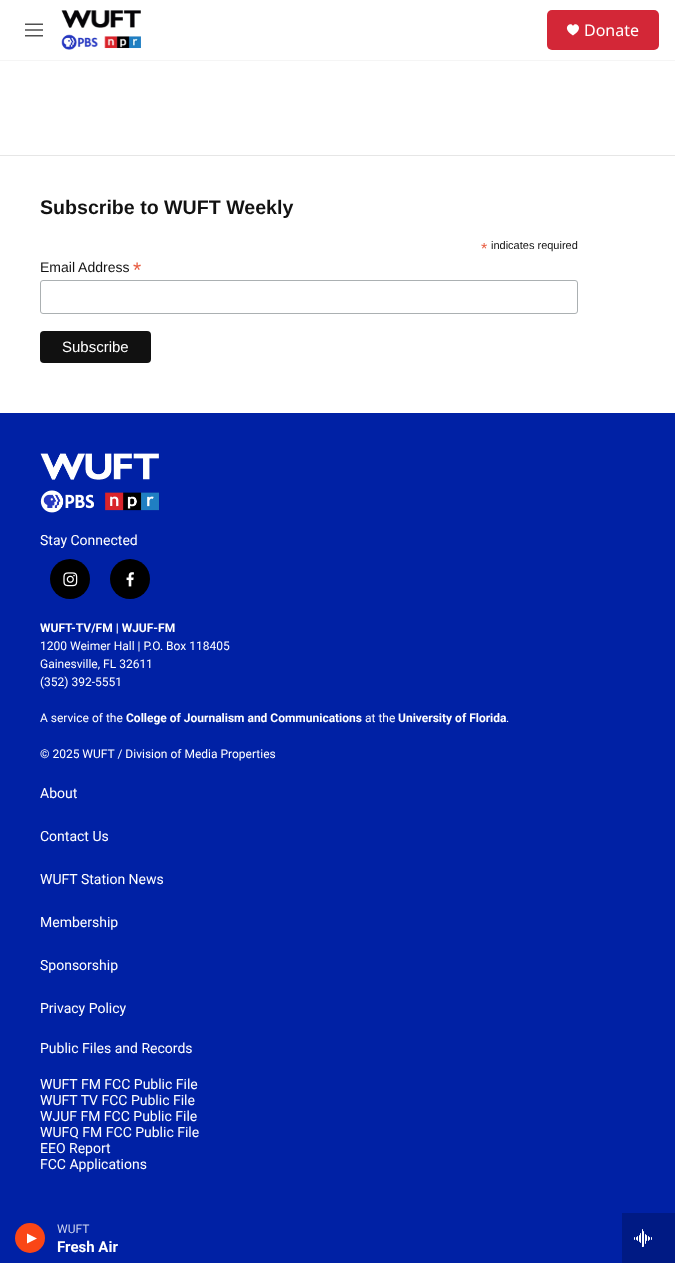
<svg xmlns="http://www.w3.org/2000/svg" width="675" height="1263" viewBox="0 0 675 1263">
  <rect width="100%" height="100%" fill="#ffffff"/>
  <rect x="0" y="60" width="675" height="1" fill="#f5f5f5"/>
  <image x="25" y="23" width="18" height="14" href="img1.png"/>
  <image x="61" y="10" width="80" height="40" href="img2.png"/>
  <rect x="547" y="10" width="112" height="40" rx="5" fill="#d32737"/>
  <path d="M573 26C571 21 560.5 28 573 35.5C585.5 28 575 21 573 26Z" fill="#ffffff"/>
  <text x="584" y="36" font-family="Noto Sans" font-size="16" fill="#ffffff">Donate</text>
  <rect x="0" y="413" width="675" height="850" fill="#0021a5"/>
  <circle cx="30" cy="1238" r="15" fill="#fa4616"/>
  <path d="M27 1233.5L37 1238.5L27 1243.5Z" fill="#ffffff"/>
  <text x="57" y="1233" font-family="Roboto" font-size="12" fill="#ccd3ed">WUFT</text>
  <text x="57" y="1252" font-family="Roboto" font-size="15" font-weight="bold" fill="#ffffff">Fresh Air</text>
  <rect x="622" y="1213" width="53" height="50" fill="#001a84"/>
  <image x="634" y="1229" width="18" height="18" href="img3.png"/>
  <rect x="0" y="155" width="675" height="1" fill="#e6e6e6"/>
  <text x="40" y="214" font-family="Liberation Sans" font-size="19.6" font-weight="bold" fill="#121212">Subscribe to WUFT Weekly</text>
  <text x="481" y="254" font-family="Liberation Sans" font-size="16" fill="#e85c41">*</text>
  <text x="491" y="249" font-family="Liberation Sans" font-size="11" fill="#121212">indicates required</text>
  <text x="40" y="272" font-family="Liberation Sans" font-size="14" fill="#121212">Email Address</text>
  <text x="133" y="277" font-family="Liberation Sans" font-size="21" fill="#e85c41">*</text>
  <rect x="40.5" y="280.5" width="537" height="33" rx="2.5" fill="none" stroke="#abb0b2"/>
  <rect x="40" y="331" width="111" height="32" rx="4" fill="#111111"/>
  <text x="62" y="352" font-family="Liberation Sans" font-size="15" fill="#ffffff">Subscribe</text>
  <image x="40" y="453" width="119" height="60" href="img4.png"/>
  <text x="40" y="545" font-family="Roboto" font-size="14" fill="#ffffff">Stay Connected</text>
  <circle cx="70" cy="579" r="20" fill="#000000"/>
  <image x="63" y="572" width="15" height="15" href="img5.png"/>
  <circle cx="130" cy="579" r="20" fill="#000000"/>
  <image x="126" y="572" width="8" height="15" href="img6.png"/>
  <text x="40" y="632" font-family="Roboto" font-size="12" font-weight="bold" fill="#ffffff">WUFT-TV/FM | WJUF-FM</text>
  <text x="40" y="650" font-family="Roboto" font-size="12" fill="#ffffff">1200 Weimer Hall | P.O. Box 118405</text>
  <text x="40" y="668" font-family="Roboto" font-size="12" fill="#ffffff">Gainesville, FL 32611</text>
  <text x="40" y="686" font-family="Roboto" font-size="12" fill="#ffffff">(352) 392-5551</text>
  <text x="40" y="722" font-family="Roboto" font-size="12" fill="#ffffff">A service of the</text>
  <text x="126" y="722" font-family="Roboto" font-size="12" font-weight="bold" fill="#ffffff">College of Journalism and Communications</text>
  <text x="365" y="722" font-family="Roboto" font-size="12" fill="#ffffff">at the</text>
  <text x="398" y="722" font-family="Roboto" font-size="12" font-weight="bold" fill="#ffffff">University of Florida</text>
  <text x="506" y="722" font-family="Roboto" font-size="12" fill="#ffffff">.</text>
  <text x="40" y="758" font-family="Roboto" font-size="12" fill="#ffffff">© 2025 WUFT / Division of Media Properties</text>
  <text x="40" y="798" font-family="Roboto" font-size="14" fill="#ffffff">About</text>
  <text x="40" y="841" font-family="Roboto" font-size="14" fill="#ffffff">Contact Us</text>
  <text x="40" y="884" font-family="Roboto" font-size="14" fill="#ffffff">WUFT Station News</text>
  <text x="40" y="927" font-family="Roboto" font-size="14" fill="#ffffff">Membership</text>
  <text x="40" y="970" font-family="Roboto" font-size="14" fill="#ffffff">Sponsorship</text>
  <text x="40" y="1013" font-family="Roboto" font-size="14" fill="#ffffff">Privacy Policy</text>
  <text x="40" y="1053" font-family="Roboto" font-size="14" fill="#ffffff">Public Files and Records</text>
  <text x="40" y="1089" font-family="Roboto" font-size="14" fill="#ffffff">WUFT FM FCC Public File</text>
  <text x="40" y="1105" font-family="Roboto" font-size="14" fill="#ffffff">WUFT TV FCC Public File</text>
  <text x="40" y="1121" font-family="Roboto" font-size="14" fill="#ffffff">WJUF FM FCC Public File</text>
  <text x="40" y="1137" font-family="Roboto" font-size="14" fill="#ffffff">WUFQ FM FCC Public File</text>
  <text x="40" y="1153" font-family="Roboto" font-size="14" fill="#ffffff">EEO Report</text>
  <text x="40" y="1169" font-family="Roboto" font-size="14" fill="#ffffff">FCC Applications</text>
</svg>
